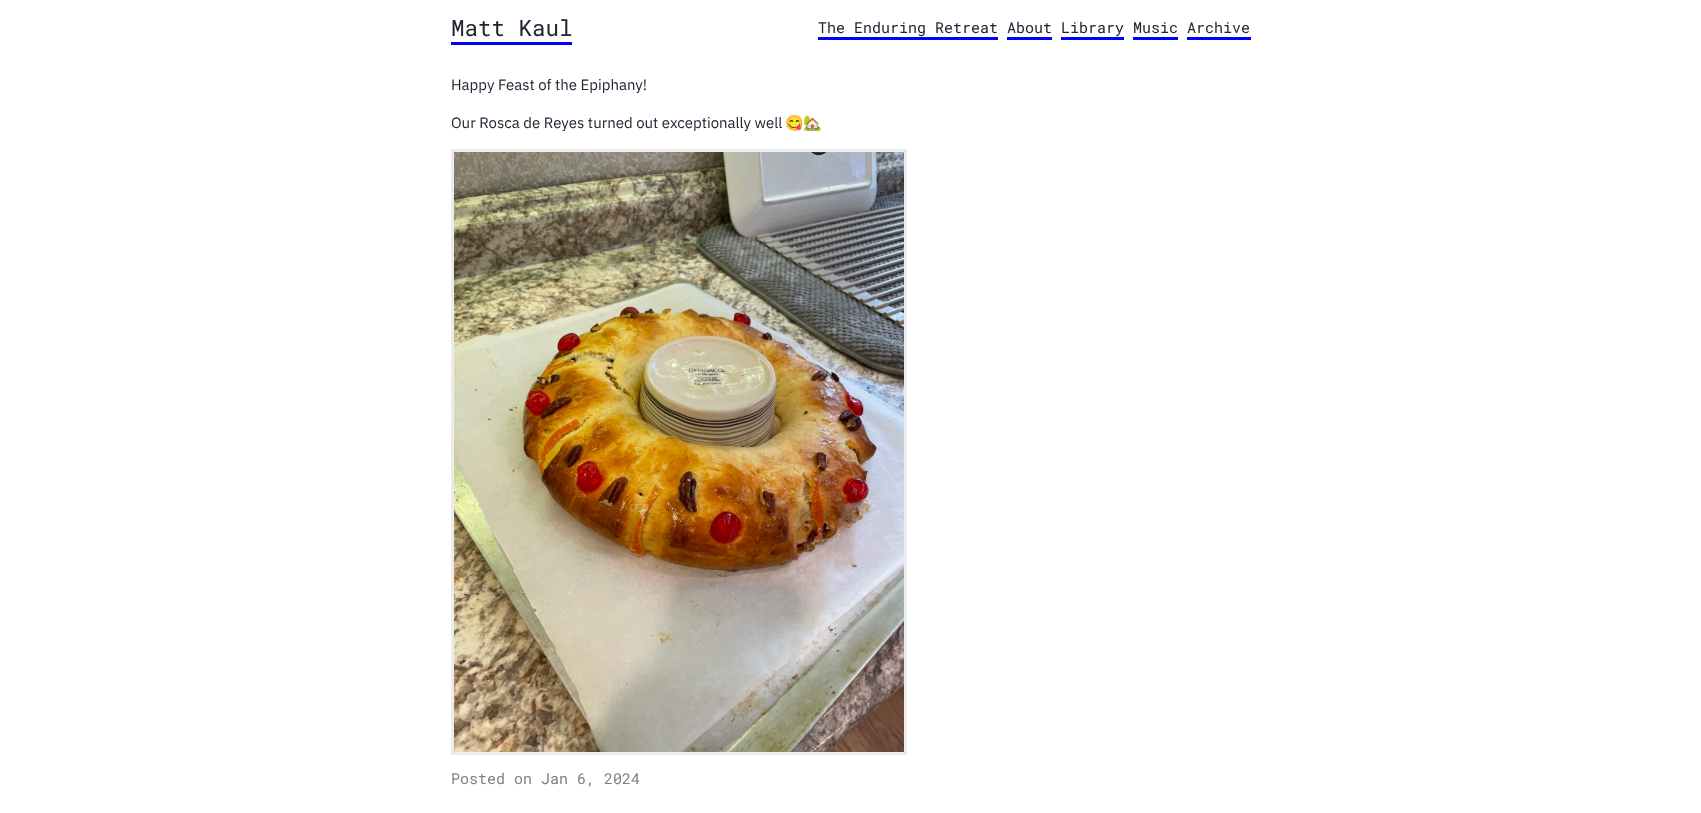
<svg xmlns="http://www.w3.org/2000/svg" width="1701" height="813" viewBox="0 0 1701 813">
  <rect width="100%" height="100%" fill="#ffffff"/>
  <text x="451" y="36" font-family="Roboto Mono" font-size="22.5" fill="#232333">Matt Kaul</text>
  <rect x="451" y="42" width="121" height="3" fill="#0000ff"/>
  <text x="818" y="33" font-family="Roboto Mono" font-size="15" fill="#232333">The Enduring Retreat About Library Music Archive</text>
  <rect x="818" y="37" width="180" height="3" fill="#0000ff"/>
  <rect x="1007" y="37" width="45" height="3" fill="#0000ff"/>
  <rect x="1061" y="37" width="63" height="3" fill="#0000ff"/>
  <rect x="1133" y="37" width="45" height="3" fill="#0000ff"/>
  <rect x="1187" y="37" width="64" height="3" fill="#0000ff"/>
  <text x="451" y="90" font-family="IBM Plex Sans" font-size="15" fill="#232333">Happy Feast of the Epiphany!</text>
  <text x="451" y="128" font-family="IBM Plex Sans" font-size="15" fill="#232333">Our Rosca de Reyes turned out exceptionally well</text>
  <text x="785" y="128" font-family="Noto Color Emoji" font-size="15" fill="#232333">😋🏡</text>
  <rect x="452.5" y="150.5" width="453" height="603" fill="none" stroke="#ececec" stroke-width="3"/>
  <image x="454" y="152" width="450" height="600" href="img1.png"/>
  <text x="451" y="784" font-family="Roboto Mono" font-size="15" fill="#808080">Posted on Jan 6, 2024</text>
</svg>
